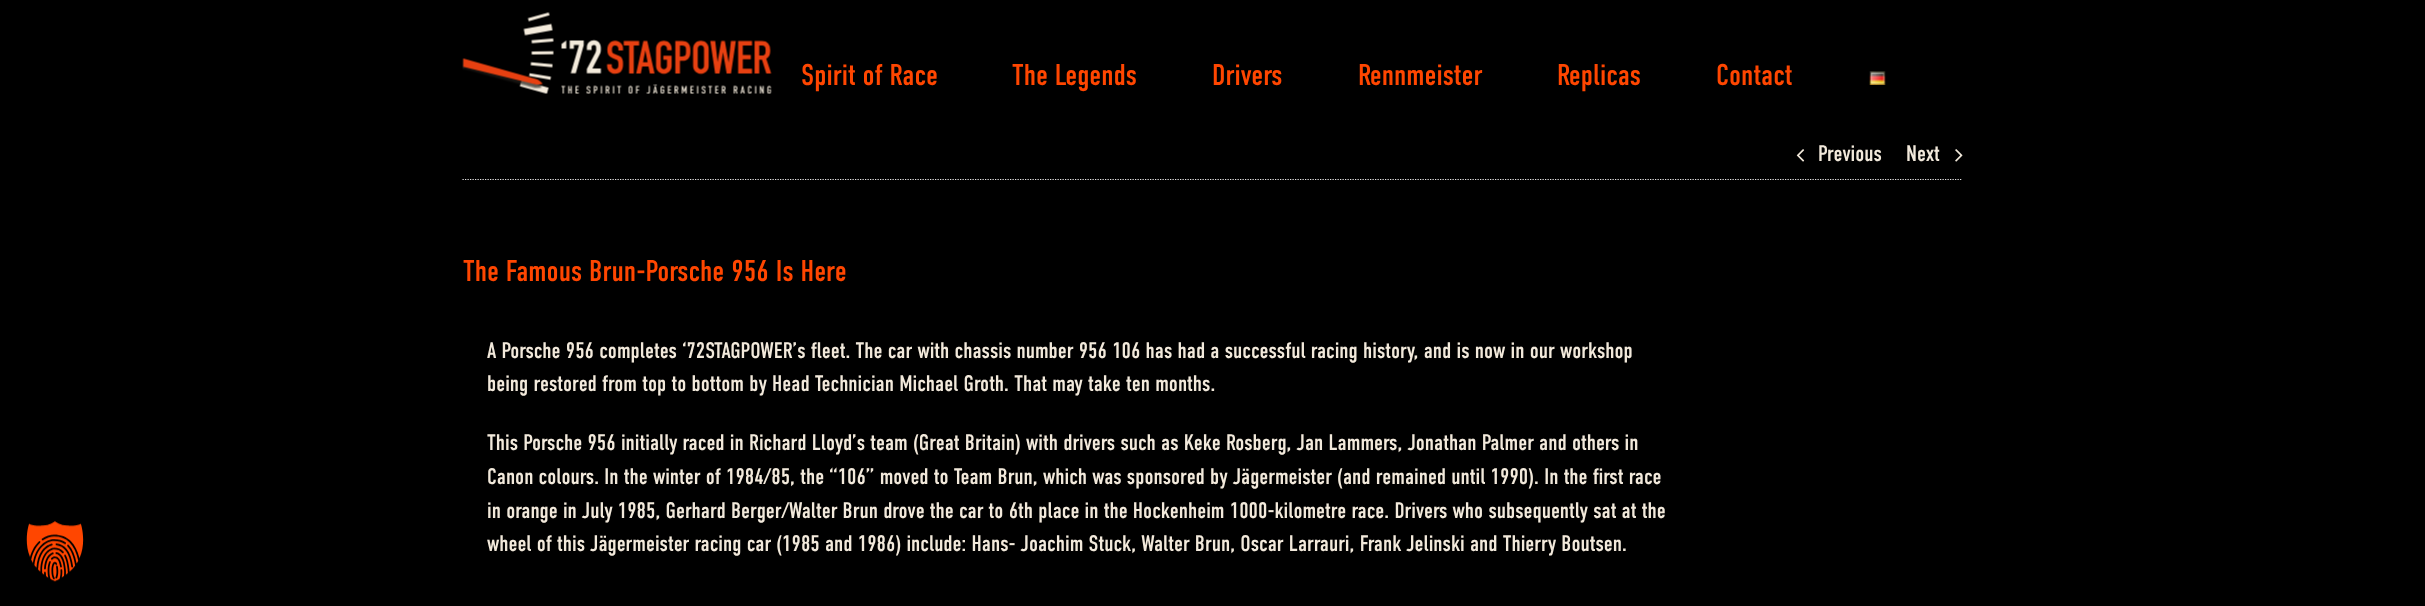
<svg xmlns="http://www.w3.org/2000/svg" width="2425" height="606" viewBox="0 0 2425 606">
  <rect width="100%" height="100%" fill="#000000"/>
  <image x="26" y="521" width="58" height="61" href="img1.png"/>
  <image x="462" y="12" width="310" height="82" href="img2.png"/>
  <text x="801" y="85" font-family="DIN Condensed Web" font-size="30" fill="#ff4600">Spirit of Race</text>
  <text x="1012" y="85" font-family="DIN Condensed Web" font-size="30" fill="#ff4600">The Legends</text>
  <text x="1212" y="85" font-family="DIN Condensed Web" font-size="30" fill="#ff4600">Drivers</text>
  <text x="1358" y="85" font-family="DIN Condensed Web" font-size="30" fill="#ff4600">Rennmeister</text>
  <text x="1557" y="85" font-family="DIN Condensed Web" font-size="30" fill="#ff4600">Replicas</text>
  <text x="1716" y="85" font-family="DIN Condensed Web" font-size="30" fill="#ff4600">Contact</text>
  <image x="1869" y="71" width="17" height="14" href="img3.png"/>
  <path d="M462.5 179.5H1962.5" fill="none" stroke="#e7e6e6" stroke-width="1.2" stroke-dasharray="1.25 1.25"/>
  <image x="1796" y="149" width="9" height="13" href="img4.png"/>
  <text x="1818" y="161" font-family="DIN Condensed Web" font-size="22.5" fill="#f2e9db">Previous</text>
  <text x="1906" y="161" font-family="DIN Condensed Web" font-size="22.5" fill="#f2e9db">Next</text>
  <image x="1955" y="149" width="8" height="13" href="img5.png"/>
  <text x="463" y="281" font-family="DIN Condensed Web" font-size="30" fill="#ff4600">The Famous Brun-Porsche 956 Is Here</text>
  <text x="487" y="358" font-family="DIN Condensed Web" font-size="22.5" fill="#f2e9db">A Porsche 956 completes ‘72STAGPOWER’s fleet. The car with chassis number 956 106 has had a successful racing history, and is now in our workshop</text>
  <text x="487" y="391" font-family="DIN Condensed Web" font-size="22.5" fill="#f2e9db">being restored from top to bottom by Head Technician Michael Groth. That may take ten months.</text>
  <text x="487" y="450" font-family="DIN Condensed Web" font-size="22.5" fill="#f2e9db">This Porsche 956 initially raced in Richard Lloyd’s team (Great Britain) with drivers such as Keke Rosberg, Jan Lammers, Jonathan Palmer and others in</text>
  <text x="487" y="484" font-family="DIN Condensed Web" font-size="22.5" fill="#f2e9db">Canon colours. In the winter of 1984/85, the “106” moved to Team Brun, which was sponsored by Jägermeister (and remained until 1990). In the first race</text>
  <text x="487" y="518" font-family="DIN Condensed Web" font-size="22.5" fill="#f2e9db">in orange in July 1985, Gerhard Berger/Walter Brun drove the car to 6th place in the Hockenheim 1000-kilometre race. Drivers who subsequently sat at the</text>
  <text x="487" y="551" font-family="DIN Condensed Web" font-size="22.5" fill="#f2e9db">wheel of this Jägermeister racing car (1985 and 1986) include: Hans- Joachim Stuck, Walter Brun, Oscar Larrauri, Frank Jelinski and Thierry Boutsen.</text>
</svg>
